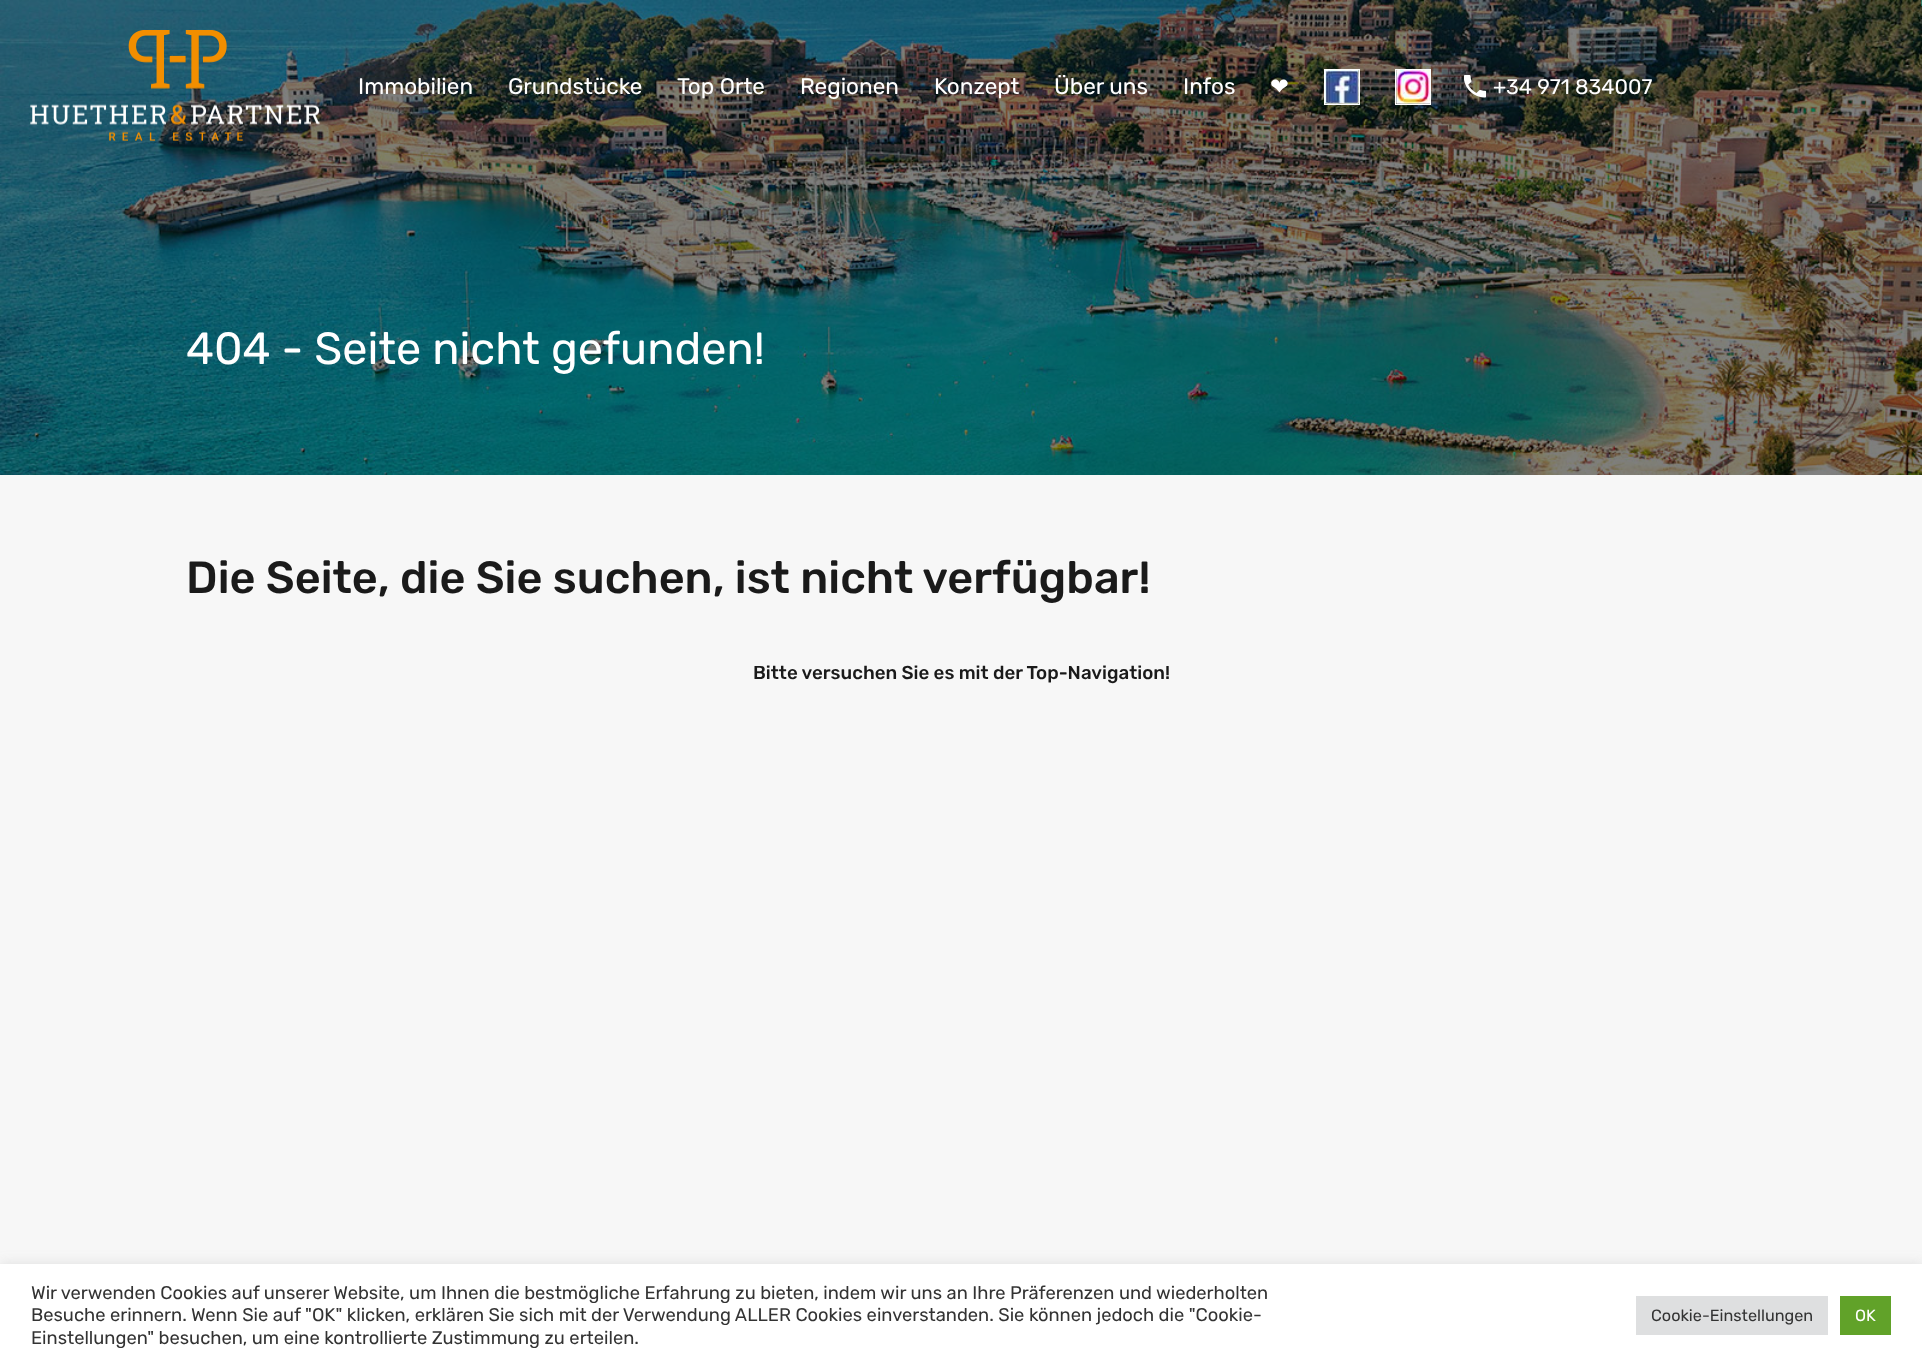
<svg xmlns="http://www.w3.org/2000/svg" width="1922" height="1366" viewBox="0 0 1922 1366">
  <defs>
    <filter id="blur1" x="-50%" y="-200%" width="200%" height="500%"><feGaussianBlur stdDeviation="6"/></filter>
  </defs>
  <rect width="100%" height="100%" fill="#f7f7f7"/>
  <image x="0" y="0" width="1922" height="475" href="img5.png"/>
  <path d="M1921.5 3H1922.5" fill="none" stroke="#1ea69a" stroke-width="5.8"/>
  <image x="30" y="30" width="290" height="111" href="img1.png"/>
  <text x="358" y="94" font-family="Rubik" font-size="22.5" fill="#ffffff">Immobilien</text>
  <text x="508" y="94" font-family="Rubik" font-size="22.5" fill="#ffffff">Grundstücke</text>
  <text x="677" y="94" font-family="Rubik" font-size="22.5" fill="#ffffff">Top Orte</text>
  <text x="800" y="94" font-family="Rubik" font-size="22.5" fill="#ffffff">Regionen</text>
  <text x="934" y="94" font-family="Rubik" font-size="22.5" fill="#ffffff">Konzept</text>
  <text x="1054" y="94" font-family="Rubik" font-size="22.5" fill="#ffffff">Über uns</text>
  <text x="1183" y="94" font-family="Rubik" font-size="22.5" fill="#ffffff">Infos</text>
  <text x="1270" y="94" font-family="DejaVu Sans" font-size="22.5" fill="#ffffff">❤</text>
  <rect x="1324.5" y="69.5" width="35" height="35" fill="none" stroke="#ffffff"/>
  <image x="1325" y="70" width="34" height="34" href="img2.png"/>
  <rect x="1395.5" y="69.5" width="35" height="35" fill="none" stroke="#ffffff"/>
  <image x="1396" y="70" width="34" height="34" href="img3.png"/>
  <image x="1464" y="75" width="22" height="23" href="img4.png"/>
  <text x="1493" y="94" font-family="Rubik" font-size="21.25" fill="#ffffff">+34 971 834007</text>
  <text x="186" y="364" font-family="Rubik" font-size="45" fill="#ffffff">404 - Seite nicht gefunden!</text>
  <text x="186" y="593" font-family="Rubik" font-size="45" font-weight="500" fill="#1a1a1a">Die Seite, die Sie suchen, ist nicht verfügbar!</text>
  <text x="753" y="679" font-family="Rubik" font-size="18.75" font-weight="500" fill="#1a1a1a">Bitte versuchen Sie es mit der Top-Navigation!</text>
  <rect x="0" y="1263" width="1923" height="102" fill="#acabab" fill-opacity="0.3" filter="url(#blur1)"/>
  <rect x="0" y="1264" width="1922" height="102" fill="#ffffff"/>
  <text x="31" y="1299" font-family="Rubik" font-size="18.33" fill="#333333">Wir verwenden Cookies auf unserer Website, um Ihnen die bestmögliche Erfahrung zu bieten, indem wir uns an Ihre Präferenzen und wiederholten</text>
  <text x="31" y="1321" font-family="Rubik" font-size="18.33" fill="#333333">Besuche erinnern. Wenn Sie auf "OK" klicken, erklären Sie sich mit der Verwendung ALLER Cookies einverstanden. Sie können jedoch die "Cookie-</text>
  <text x="31" y="1344" font-family="Rubik" font-size="18.33" fill="#333333">Einstellungen" besuchen, um eine kontrollierte Zustimmung zu erteilen.</text>
  <rect x="1636" y="1296" width="192" height="39" fill="#dedfe0"/>
  <text x="1651" y="1321" font-family="Rubik" font-size="16.25" fill="#333333">Cookie-Einstellungen</text>
  <rect x="1840" y="1296" width="51" height="39" fill="#61a229"/>
  <text x="1855" y="1321" font-family="Rubik" font-size="16.25" fill="#ffffff">OK</text>
</svg>
